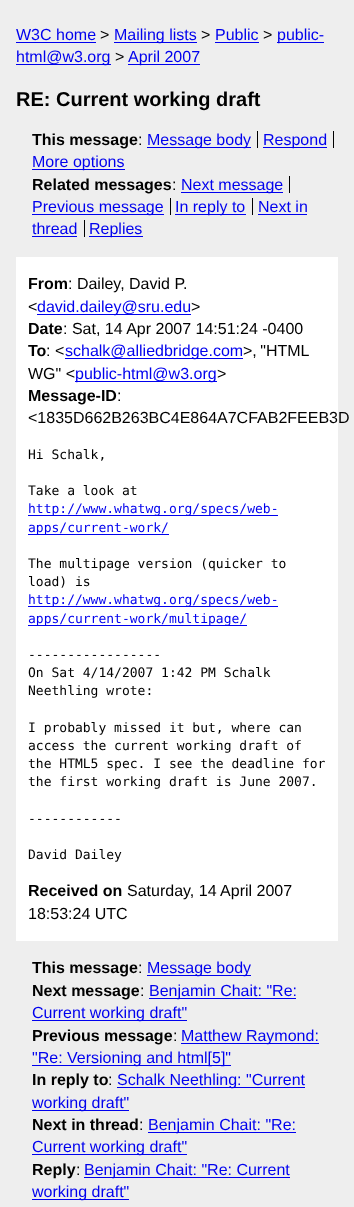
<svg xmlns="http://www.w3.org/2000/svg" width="354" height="1207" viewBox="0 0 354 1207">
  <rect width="100%" height="100%" fill="#eeeeee"/>
  <text x="16" y="40" font-family="Liberation Sans" font-size="16" fill="#0000ee">W3C home</text>
  <rect x="16" y="42" width="80" height="1" fill="#0000ee"/>
  <text x="100" y="40" font-family="Liberation Sans" font-size="16" fill="#000000">&gt;</text>
  <rect x="114" y="42" width="83" height="1" fill="#0000ee"/>
  <text x="114" y="40" font-family="Liberation Sans" font-size="16" fill="#0000ee">Mailing lists</text>
  <text x="201" y="40" font-family="Liberation Sans" font-size="16" fill="#000000">&gt;</text>
  <text x="215" y="40" font-family="Liberation Sans" font-size="16" fill="#0000ee">Public</text>
  <rect x="215" y="42" width="44" height="1" fill="#0000ee"/>
  <text x="263" y="40" font-family="Liberation Sans" font-size="16" fill="#000000">&gt;</text>
  <rect x="277" y="42" width="47" height="1" fill="#0000ee"/>
  <text x="277" y="40" font-family="Liberation Sans" font-size="16" fill="#0000ee">public-</text>
  <rect x="16" y="64" width="95" height="1" fill="#0000ee"/>
  <text x="16" y="62" font-family="Liberation Sans" font-size="16" fill="#0000ee">html@w3.org</text>
  <text x="115" y="62" font-family="Liberation Sans" font-size="16" fill="#000000">&gt;</text>
  <rect x="128" y="64" width="72" height="1" fill="#0000ee"/>
  <text x="128" y="62" font-family="Liberation Sans" font-size="16" fill="#0000ee">April 2007</text>
  <text x="16" y="106" font-family="Liberation Sans" font-size="20" font-weight="bold" fill="#000000">RE: Current working draft</text>
  <text x="32" y="145" font-family="Liberation Sans" font-size="16" font-weight="bold" fill="#000000">This message</text>
  <text x="138" y="145" font-family="Liberation Sans" font-size="16" fill="#000000">:</text>
  <rect x="147" y="147" width="104" height="1" fill="#0000ee"/>
  <text x="147" y="145" font-family="Liberation Sans" font-size="16" fill="#0000ee">Message body</text>
  <rect x="263" y="147" width="64" height="1" fill="#0000ee"/>
  <text x="263" y="145" font-family="Liberation Sans" font-size="16" fill="#0000ee">Respond</text>
  <rect x="257" y="131" width="1" height="17" fill="#000000"/>
  <rect x="333" y="131" width="1" height="17" fill="#000000"/>
  <rect x="32" y="169" width="93" height="1" fill="#0000ee"/>
  <text x="32" y="167" font-family="Liberation Sans" font-size="16" fill="#0000ee">More options</text>
  <text x="32" y="190" font-family="Liberation Sans" font-size="16" font-weight="bold" fill="#000000">Related messages</text>
  <text x="172" y="190" font-family="Liberation Sans" font-size="16" fill="#000000">:</text>
  <rect x="181" y="192" width="102" height="1" fill="#0000ee"/>
  <text x="181" y="190" font-family="Liberation Sans" font-size="16" fill="#0000ee">Next message</text>
  <rect x="289" y="176" width="1" height="17" fill="#000000"/>
  <rect x="32" y="214" width="132" height="1" fill="#0000ee"/>
  <text x="32" y="212" font-family="Liberation Sans" font-size="16" fill="#0000ee">Previous message</text>
  <rect x="175" y="214" width="71" height="1" fill="#0000ee"/>
  <text x="175" y="212" font-family="Liberation Sans" font-size="16" fill="#0000ee">In reply to</text>
  <rect x="170" y="198" width="1" height="17" fill="#000000"/>
  <text x="258" y="212" font-family="Liberation Sans" font-size="16" fill="#0000ee">Next in</text>
  <rect x="252" y="198" width="1" height="17" fill="#000000"/>
  <rect x="258" y="214" width="49" height="1" fill="#0000ee"/>
  <text x="32" y="234" font-family="Liberation Sans" font-size="16" fill="#0000ee">thread</text>
  <rect x="84" y="220" width="1" height="17" fill="#000000"/>
  <rect x="32" y="236" width="45" height="1" fill="#0000ee"/>
  <rect x="89" y="236" width="54" height="1" fill="#0000ee"/>
  <text x="89" y="234" font-family="Liberation Sans" font-size="16" fill="#0000ee">Replies</text>
  <rect x="16" y="257" width="322" height="684" fill="#ffffff"/>
  <text x="28" y="289" font-family="Liberation Sans" font-size="16" font-weight="bold" fill="#000000">From</text>
  <text x="68" y="289" font-family="Liberation Sans" font-size="16" fill="#000000">: Dailey, David P.</text>
  <text x="28" y="312" font-family="Liberation Sans" font-size="16" fill="#000000">&lt;</text>
  <rect x="37" y="314" width="154" height="1" fill="#0000ee"/>
  <text x="37" y="312" font-family="Liberation Sans" font-size="16" fill="#0000ee">david.dailey@sru.edu</text>
  <text x="191" y="312" font-family="Liberation Sans" font-size="16" fill="#000000">&gt;</text>
  <text x="28" y="334" font-family="Liberation Sans" font-size="16" font-weight="bold" fill="#000000">Date</text>
  <text x="63" y="334" font-family="Liberation Sans" font-size="16" fill="#000000">: Sat, 14 Apr 2007 14:51:24 -0400</text>
  <text x="28" y="356" font-family="Liberation Sans" font-size="16" font-weight="bold" fill="#000000">To</text>
  <text x="46" y="356" font-family="Liberation Sans" font-size="16" fill="#000000">: &lt;</text>
  <rect x="65" y="358" width="178" height="1" fill="#0000ee"/>
  <text x="65" y="356" font-family="Liberation Sans" font-size="16" fill="#0000ee">schalk@alliedbridge.com</text>
  <text x="243" y="356" word-spacing="-1" font-family="Liberation Sans" font-size="16" fill="#000000">&gt;, "HTML</text>
  <text x="28" y="379" font-family="Liberation Sans" font-size="16" fill="#000000">WG" &lt;</text>
  <rect x="75" y="381" width="142" height="1" fill="#0000ee"/>
  <text x="75" y="379" font-family="Liberation Sans" font-size="16" fill="#0000ee">public-html@w3.org</text>
  <text x="217" y="379" font-family="Liberation Sans" font-size="16" fill="#000000">&gt;</text>
  <text x="28" y="401" font-family="Liberation Sans" font-size="16" font-weight="bold" fill="#000000">Message-ID</text>
  <text x="117" y="401" font-family="Liberation Sans" font-size="16" fill="#000000">:</text>
  <text x="28" y="423" font-family="Liberation Sans" font-size="16" fill="#000000">&lt;1835D662B263BC4E864A7CFAB2FEEB3D</text>
  <text x="28" y="459" font-family="DejaVu Sans Mono" font-size="13" fill="#000000">Hi Schalk,</text>
  <text x="28" y="495" font-family="DejaVu Sans Mono" font-size="13" fill="#000000">Take a look at</text>
  <rect x="28" y="515" width="250" height="1" fill="#0000ee"/>
  <text x="28" y="513" font-family="DejaVu Sans Mono" font-size="13" fill="#0000ee">http://www.whatwg.org/specs/web-</text>
  <rect x="28" y="534" width="141" height="1" fill="#0000ee"/>
  <text x="28" y="532" font-family="DejaVu Sans Mono" font-size="13" fill="#0000ee">apps/current-work/</text>
  <text x="28" y="568" font-family="DejaVu Sans Mono" font-size="13" fill="#000000">The multipage version (quicker to</text>
  <text x="28" y="586" font-family="DejaVu Sans Mono" font-size="13" fill="#000000">load) is</text>
  <rect x="28" y="606" width="250" height="1" fill="#0000ee"/>
  <text x="28" y="604" font-family="DejaVu Sans Mono" font-size="13" fill="#0000ee">http://www.whatwg.org/specs/web-</text>
  <rect x="28" y="625" width="219" height="1" fill="#0000ee"/>
  <text x="28" y="623" font-family="DejaVu Sans Mono" font-size="13" fill="#0000ee">apps/current-work/multipage/</text>
  <text x="28" y="659" font-family="DejaVu Sans Mono" font-size="13" fill="#000000">-----------------</text>
  <text x="28" y="677" font-family="DejaVu Sans Mono" font-size="13" fill="#000000">On Sat 4/14/2007 1:42 PM Schalk</text>
  <text x="28" y="695" font-family="DejaVu Sans Mono" font-size="13" fill="#000000">Neethling wrote:</text>
  <text x="28" y="732" font-family="DejaVu Sans Mono" font-size="13" fill="#000000">I probably missed it but, where can</text>
  <text x="28" y="750" font-family="DejaVu Sans Mono" font-size="13" fill="#000000">access the current working draft of</text>
  <text x="28" y="768" font-family="DejaVu Sans Mono" font-size="13" fill="#000000">the HTML5 spec. I see the deadline for</text>
  <text x="28" y="786" font-family="DejaVu Sans Mono" font-size="13" fill="#000000">the first working draft is June 2007.</text>
  <text x="28" y="823" font-family="DejaVu Sans Mono" font-size="13" fill="#000000">------------</text>
  <text x="28" y="859" font-family="DejaVu Sans Mono" font-size="13" fill="#000000">David Dailey</text>
  <text x="28" y="896" font-family="Liberation Sans" font-size="16" font-weight="bold" fill="#000000">Received on</text>
  <text x="127" y="896" font-family="Liberation Sans" font-size="16" fill="#000000">Saturday, 14 April 2007</text>
  <text x="28" y="919" font-family="Liberation Sans" font-size="16" fill="#000000">18:53:24 UTC</text>
  <text x="32" y="973" font-family="Liberation Sans" font-size="16" font-weight="bold" fill="#000000">This message</text>
  <text x="138" y="973" font-family="Liberation Sans" font-size="16" fill="#000000">:</text>
  <rect x="147" y="975" width="104" height="1" fill="#0000ee"/>
  <text x="147" y="973" font-family="Liberation Sans" font-size="16" fill="#0000ee">Message body</text>
  <text x="32" y="996" font-family="Liberation Sans" font-size="16" font-weight="bold" fill="#000000">Next message</text>
  <text x="140" y="996" font-family="Liberation Sans" font-size="16" fill="#000000">:</text>
  <rect x="149" y="998" width="147" height="1" fill="#0000ee"/>
  <text x="149" y="996" font-family="Liberation Sans" font-size="16" fill="#0000ee">Benjamin Chait: "Re:</text>
  <rect x="32" y="1020" width="155" height="1" fill="#0000ee"/>
  <text x="32" y="1018" font-family="Liberation Sans" font-size="16" fill="#0000ee">Current working draft"</text>
  <text x="32" y="1041" font-family="Liberation Sans" font-size="16" font-weight="bold" fill="#000000">Previous message</text>
  <text x="173" y="1041" font-family="Liberation Sans" font-size="16" fill="#000000">:</text>
  <rect x="181" y="1043" width="138" height="1" fill="#0000ee"/>
  <text x="181" y="1041" font-family="Liberation Sans" font-size="16" fill="#0000ee">Matthew Raymond:</text>
  <rect x="32" y="1065" width="199" height="1" fill="#0000ee"/>
  <text x="32" y="1063" font-family="Liberation Sans" font-size="16" fill="#0000ee">"Re: Versioning and html[5]"</text>
  <text x="32" y="1085" font-family="Liberation Sans" font-size="16" font-weight="bold" fill="#000000">In reply to</text>
  <text x="108" y="1085" font-family="Liberation Sans" font-size="16" fill="#000000">:</text>
  <rect x="117" y="1087" width="188" height="1" fill="#0000ee"/>
  <text x="117" y="1085" font-family="Liberation Sans" font-size="16" fill="#0000ee">Schalk Neethling: "Current</text>
  <rect x="32" y="1110" width="97" height="1" fill="#0000ee"/>
  <text x="32" y="1108" font-family="Liberation Sans" font-size="16" fill="#0000ee">working draft"</text>
  <text x="32" y="1130" font-family="Liberation Sans" font-size="16" font-weight="bold" fill="#000000">Next in thread</text>
  <text x="139" y="1130" font-family="Liberation Sans" font-size="16" fill="#000000">:</text>
  <rect x="148" y="1132" width="148" height="1" fill="#0000ee"/>
  <text x="148" y="1130" font-family="Liberation Sans" font-size="16" fill="#0000ee">Benjamin Chait: "Re:</text>
  <rect x="32" y="1154" width="155" height="1" fill="#0000ee"/>
  <text x="32" y="1152" font-family="Liberation Sans" font-size="16" fill="#0000ee">Current working draft"</text>
  <text x="32" y="1175" font-family="Liberation Sans" font-size="16" font-weight="bold" fill="#000000">Reply</text>
  <text x="76" y="1175" font-family="Liberation Sans" font-size="16" fill="#000000">:</text>
  <rect x="84" y="1177" width="206" height="1" fill="#0000ee"/>
  <text x="84" y="1175" font-family="Liberation Sans" font-size="16" fill="#0000ee">Benjamin Chait: "Re: Current</text>
  <rect x="32" y="1199" width="97" height="1" fill="#0000ee"/>
  <text x="32" y="1197" font-family="Liberation Sans" font-size="16" fill="#0000ee">working draft"</text>
</svg>
